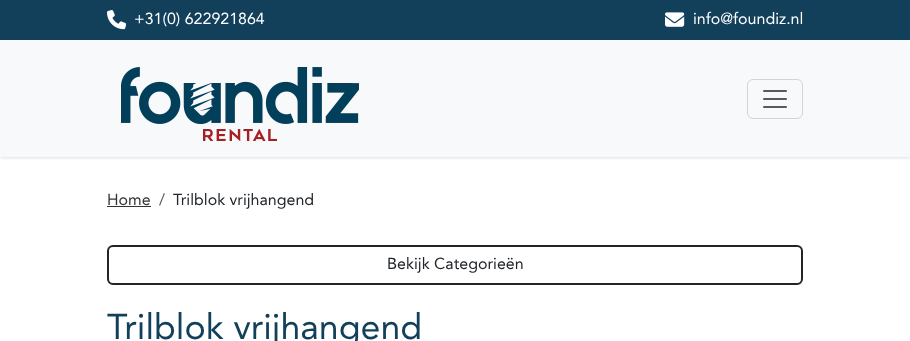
<svg xmlns="http://www.w3.org/2000/svg" width="910" height="341" viewBox="0 0 910 341">
  <defs>
    <filter id="blur1" x="-50%" y="-200%" width="200%" height="500%"><feGaussianBlur stdDeviation="1.5"/></filter>
  </defs>
  <rect width="100%" height="100%" fill="#ffffff"/>
  <rect x="0" y="1" width="910" height="157" fill="#000000" fill-opacity="0.12" filter="url(#blur1)"/>
  <rect x="0" y="0" width="910" height="40" fill="#123f5a"/>
  <image x="107" y="10" width="19" height="20" href="img1.png"/>
  <text x="134" y="24" font-family="Avenir" font-size="16" fill="#ffffff">+31(0) 622921864</text>
  <image x="665" y="12" width="20" height="15" href="img2.png"/>
  <text x="693" y="24" font-family="Avenir" font-size="16" fill="#ffffff">info@foundiz.nl</text>
  <rect x="0" y="40" width="910" height="117" fill="#f8f9fa"/>
  <image x="121" y="67" width="238" height="74" href="img3.png"/>
  <rect x="747.5" y="79.5" width="55" height="39" rx="5.5" fill="none" stroke="#d3d4d5"/>
  <image x="763" y="90" width="24" height="18" href="img4.png"/>
  <text x="107" y="205" font-family="Avenir" font-size="16" fill="#333333">Home</text>
  <rect x="107" y="206" width="44" height="1" fill="#333333"/>
  <text x="159" y="205" font-family="Avenir" font-size="16" fill="#595c5f">/</text>
  <text x="173" y="205" font-family="Avenir" font-size="16" fill="#212529">Trilblok vrijhangend</text>
  <rect x="108" y="246" width="694" height="38" rx="5" fill="none" stroke="#212529" stroke-width="2"/>
  <text x="387" y="269" font-family="Avenir" font-size="16" fill="#212529">Bekijk Categorieën</text>
  <text x="107" y="339" font-family="Avenir" font-size="35.75" fill="#123f5a">Trilblok vrijhangend</text>
</svg>
